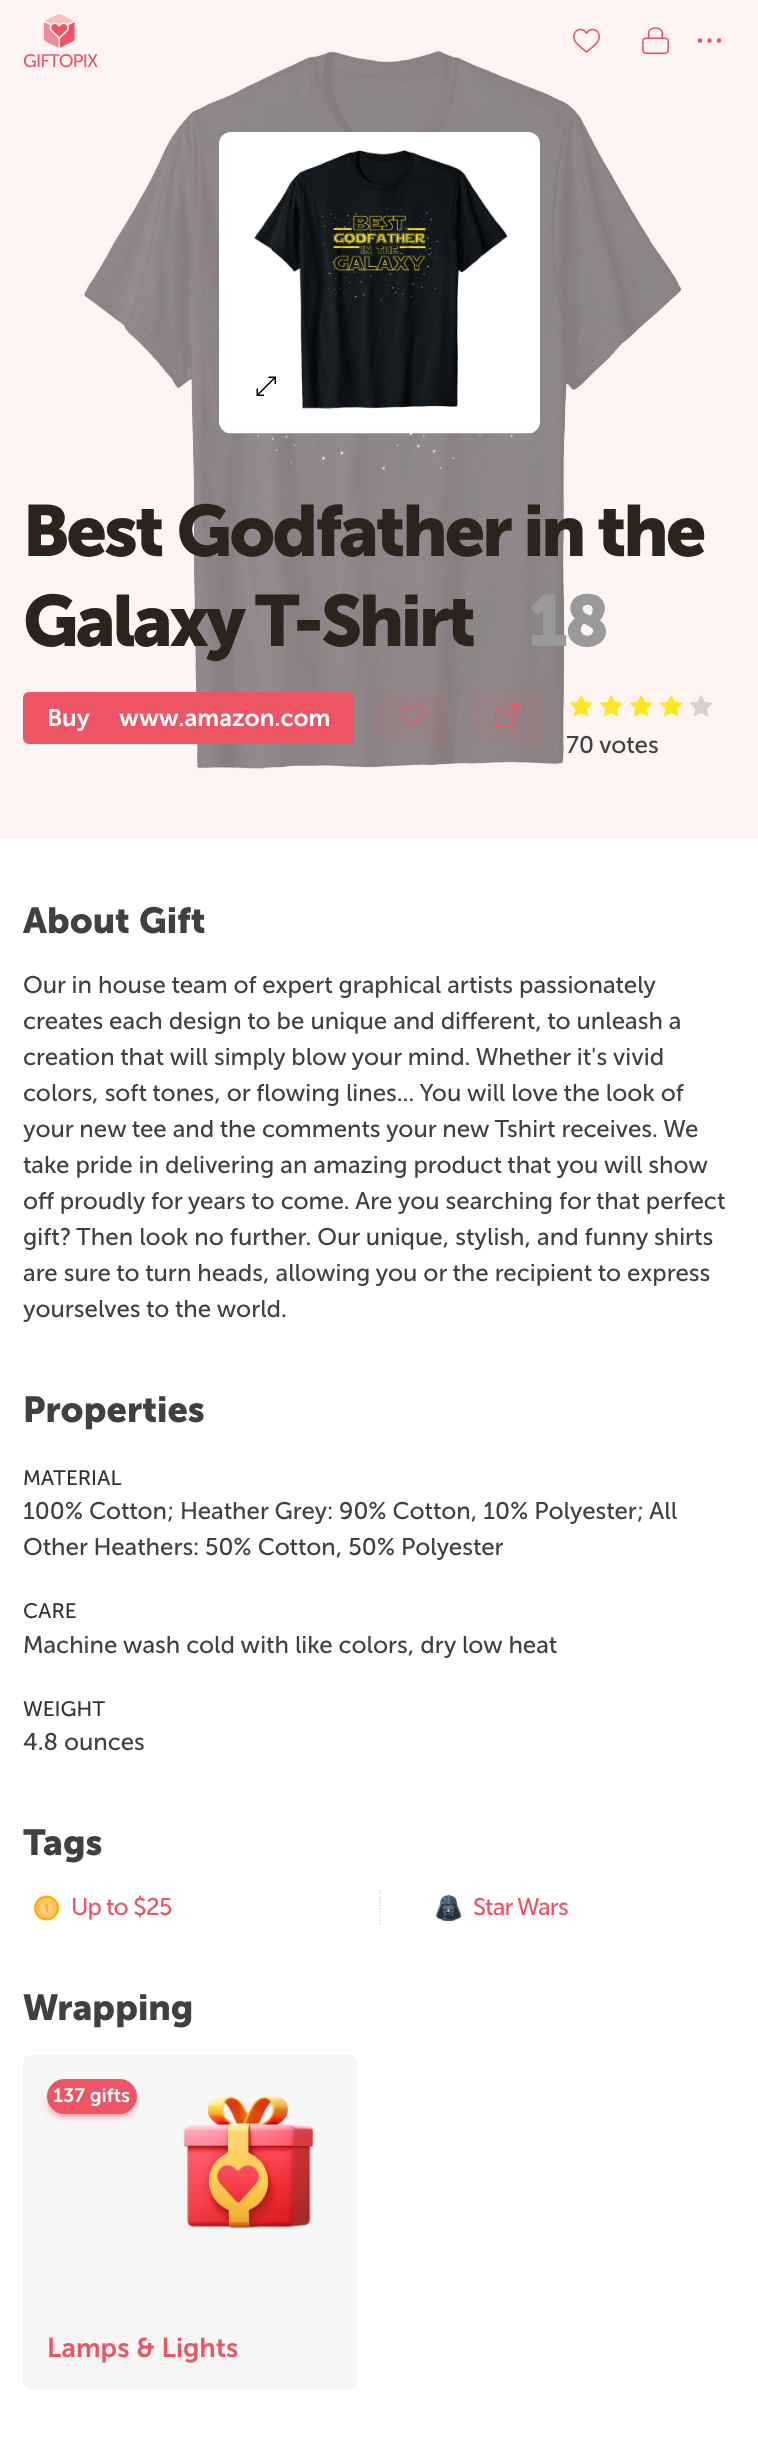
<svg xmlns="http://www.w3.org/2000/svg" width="758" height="2463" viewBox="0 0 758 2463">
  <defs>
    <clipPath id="clip1"><rect x="23" y="1821" width="714" height="105"/></clipPath>
    <filter id="blur1" x="-50%" y="-200%" width="200%" height="500%"><feGaussianBlur stdDeviation="5"/></filter>
  </defs>
  <rect width="100%" height="100%" fill="#ffffff"/>
  <rect x="0" y="0" width="758" height="839" fill="#fff4f4"/>
  <image x="84" y="49" width="600" height="721" href="img5.png"/>
  <image x="573" y="28" width="27" height="25" href="img1.png"/>
  <image x="642" y="27" width="27" height="28" href="img2.png"/>
  <image x="697" y="38" width="25" height="5" href="img3.png"/>
  <image x="43" y="14" width="32" height="34" href="img4.png"/>
  <text x="23" y="67" font-family="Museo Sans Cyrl" font-size="18" letter-spacing="-0.75" fill="#ed5565">GIFTOPIX</text>
  <image x="219" y="132" width="321" height="302" href="img6.png"/>
  <image x="256" y="376" width="20" height="20" href="img7.png"/>
  <text x="23" y="556" font-family="Museo Sans Cyrl" font-size="72" font-weight="bold" letter-spacing="-3" fill="#2d231d">Best Godfather in the</text>
  <text x="23" y="646" font-family="Museo Sans Cyrl" font-size="72" font-weight="bold" letter-spacing="-3" fill="#2d231d">Galaxy T-Shirt</text>
  <text x="528" y="646" font-family="Museo Sans Cyrl" font-size="72" font-weight="bold" letter-spacing="-3" fill="#999999">18</text>
  <rect x="23" y="692" width="331" height="52" rx="6" fill="#ed5565"/>
  <text x="47" y="726" font-family="Museo Sans Cyrl" font-size="24" font-weight="600" fill="#ffffff">Buy</text>
  <text x="119" y="726" font-family="Museo Sans Cyrl" font-size="24" font-weight="600" fill="#ffffff">www.amazon.com</text>
  <rect x="377" y="692" width="72" height="52" rx="6" fill="#ed5565" fill-opacity="0.07"/>
  <image x="400" y="704" width="25" height="23" href="img8.png"/>
  <rect x="471" y="692" width="72" height="52" rx="6" fill="#ed5565" fill-opacity="0.07"/>
  <image x="495" y="703" width="24" height="25" href="img9.png"/>
  <image x="570" y="695" width="23" height="22" href="img10.png"/>
  <image x="600" y="695" width="23" height="22" href="img10.png"/>
  <image x="630" y="695" width="23" height="22" href="img10.png"/>
  <image x="660" y="695" width="23" height="22" href="img10.png"/>
  <image x="690" y="695" width="22" height="22" href="img11.png"/>
  <text x="566" y="753" font-family="Museo Sans Cyrl" font-size="24" fill="#404040">70</text>
  <text x="599" y="753" font-family="Museo Sans Cyrl" font-size="24" fill="#404040">votes</text>
  <text x="23" y="933" font-family="Museo Sans Cyrl" font-size="36" font-weight="bold" fill="#404040">About Gift</text>
  <text x="23" y="993" font-family="Museo Sans Cyrl" font-size="24" fill="#404040">Our in house team of expert graphical artists passionately</text>
  <text x="23" y="1029" font-family="Museo Sans Cyrl" font-size="24" fill="#404040">creates each design to be unique and different, to unleash a</text>
  <text x="23" y="1065" font-family="Museo Sans Cyrl" font-size="24" fill="#404040">creation that will simply blow your mind. Whether it's vivid</text>
  <text x="23" y="1101" font-family="Museo Sans Cyrl" font-size="24" fill="#404040">colors, soft tones, or flowing lines... You will love the look of</text>
  <text x="23" y="1137" font-family="Museo Sans Cyrl" font-size="24" fill="#404040">your new tee and the comments your new Tshirt receives. We</text>
  <text x="23" y="1173" font-family="Museo Sans Cyrl" font-size="24" fill="#404040">take pride in delivering an amazing product that you will show</text>
  <text x="23" y="1209" font-family="Museo Sans Cyrl" font-size="24" fill="#404040">off proudly for years to come. Are you searching for that perfect</text>
  <text x="23" y="1245" font-family="Museo Sans Cyrl" font-size="24" fill="#404040">gift? Then look no further. Our unique, stylish, and funny shirts</text>
  <text x="23" y="1281" font-family="Museo Sans Cyrl" font-size="24" fill="#404040">are sure to turn heads, allowing you or the recipient to express</text>
  <text x="23" y="1317" font-family="Museo Sans Cyrl" font-size="24" fill="#404040">yourselves to the world.</text>
  <text x="23" y="1422" font-family="Museo Sans Cyrl" font-size="36" font-weight="bold" fill="#404040">Properties</text>
  <text x="23" y="1485" font-family="Museo Sans Cyrl" font-size="21" fill="#333333">MATERIAL</text>
  <text x="23" y="1519" font-family="Museo Sans Cyrl" font-size="24" fill="#404040">100% Cotton; Heather Grey: 90% Cotton, 10% Polyester; All</text>
  <text x="23" y="1555" font-family="Museo Sans Cyrl" font-size="24" fill="#404040">Other Heathers: 50% Cotton, 50% Polyester</text>
  <text x="23" y="1618" font-family="Museo Sans Cyrl" font-size="21" fill="#333333">CARE</text>
  <text x="23" y="1653" font-family="Museo Sans Cyrl" font-size="24" fill="#404040">Machine wash cold with like colors, dry low heat</text>
  <text x="23" y="1716" font-family="Museo Sans Cyrl" font-size="21" fill="#333333">WEIGHT</text>
  <text x="23" y="1750" font-family="Museo Sans Cyrl" font-size="24" fill="#404040">4.8 ounces</text>
  <g clip-path="url(#clip1)">
    <text x="23" y="1855" font-family="Museo Sans Cyrl" font-size="36" font-weight="bold" fill="#404040">Tags</text>
  </g>
  <image x="33" y="1895" width="27" height="27" href="img12.png"/>
  <text x="71" y="1915" font-family="Museo Sans Cyrl" font-size="24" letter-spacing="-0.75" fill="#ed5565">Up to $25</text>
  <path d="M380 1890V1926" fill="none" stroke="#dcdcdc" stroke-width="1.5" stroke-dasharray="1.5 1.5"/>
  <image x="435" y="1894" width="27" height="28" href="img13.png"/>
  <text x="473" y="1915" font-family="Museo Sans Cyrl" font-size="24" letter-spacing="-0.75" fill="#ed5565">Star Wars</text>
  <text x="23" y="2020" font-family="Museo Sans Cyrl" font-size="36" font-weight="bold" fill="#404040">Wrapping</text>
  <rect x="23" y="2055" width="334" height="335" rx="8" fill="#f6f6f6"/>
  <rect x="51" y="2090" width="81" height="24" rx="12" fill="#ed5565" filter="url(#blur1)"/>
  <rect x="47" y="2079" width="90" height="35" rx="17.5" fill="#ed5565"/>
  <text x="53" y="2102" font-family="Museo Sans Cyrl" font-size="19.5" font-weight="600" fill="#ffffff">137 gifts</text>
  <image x="183" y="2096" width="131" height="133" href="img14.png"/>
  <text x="47" y="2357" font-family="Museo Sans Cyrl" font-size="27" font-weight="600" fill="#ed5565">Lamps &amp; Lights</text>
</svg>
